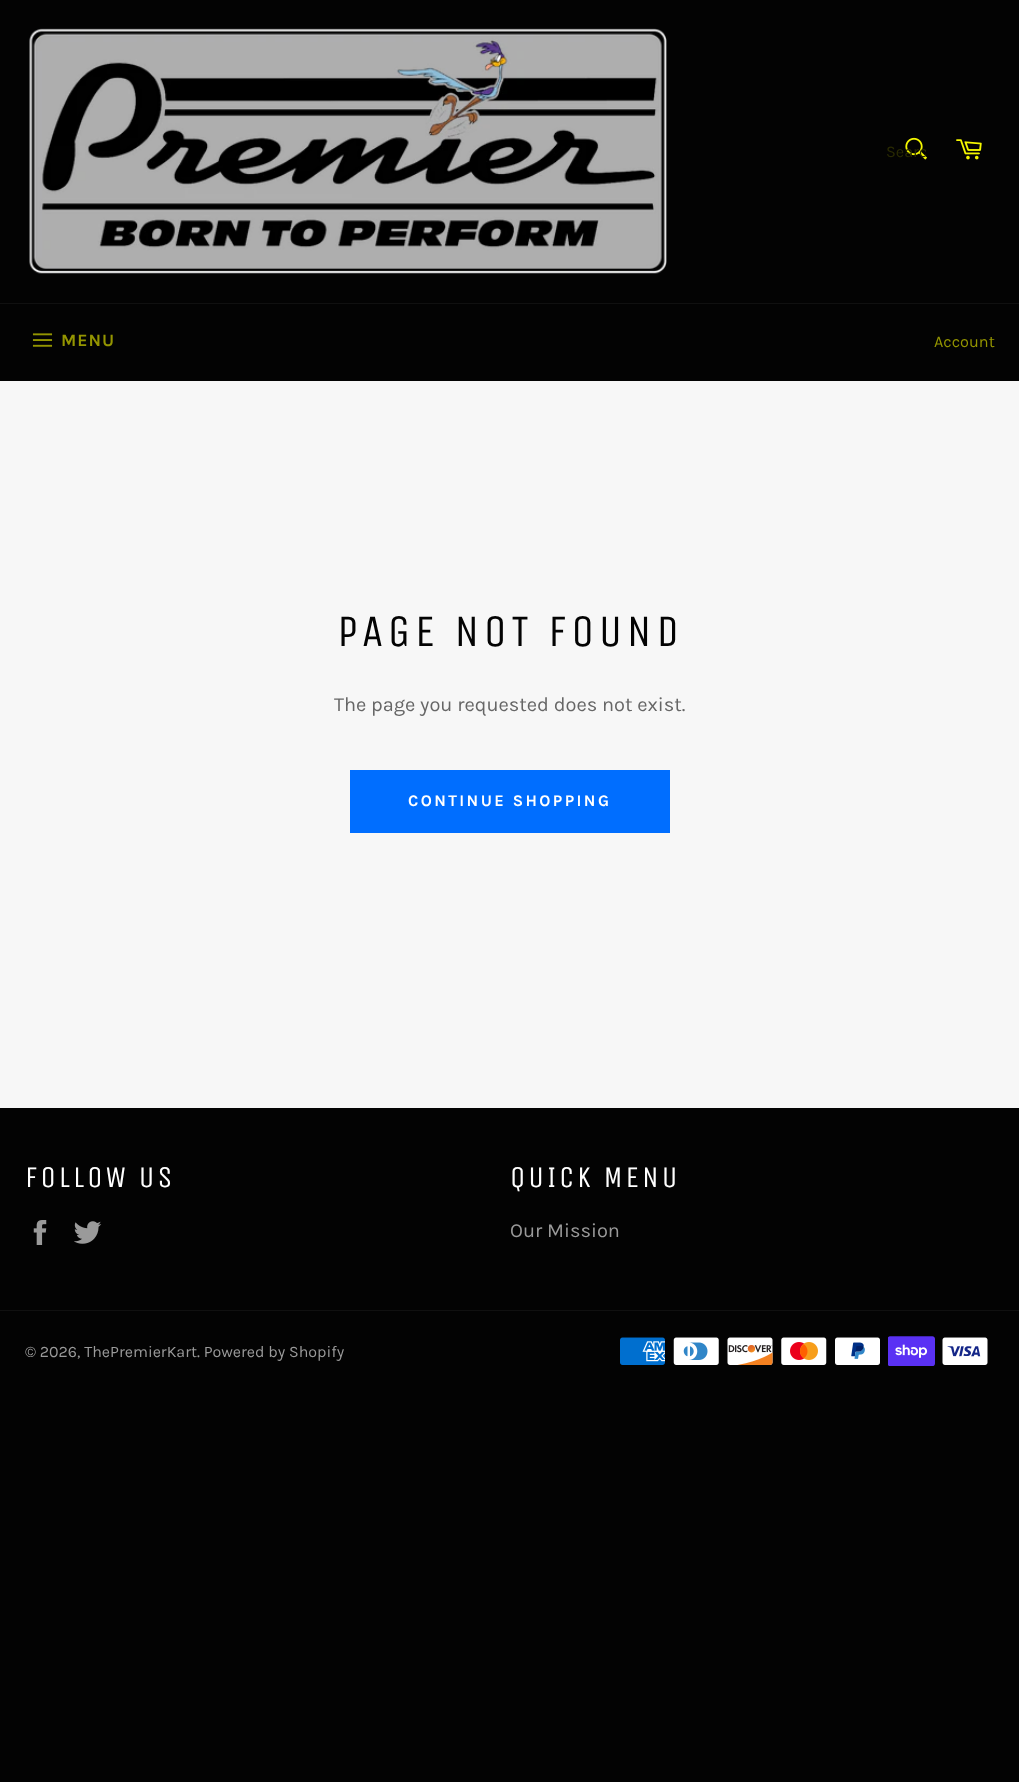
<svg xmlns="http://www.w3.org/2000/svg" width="1019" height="1782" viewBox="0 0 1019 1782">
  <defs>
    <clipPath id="clip1"><rect x="886" y="141" width="40" height="19"/></clipPath>
  </defs>
  <rect width="100%" height="100%" fill="#030303"/>
  <rect x="0" y="381" width="1019" height="727" fill="#f7f7f7"/>
  <image x="29" y="28" width="638" height="246" href="img1.png"/>
  <image x="905" y="137" width="22" height="23" href="img2.png"/>
  <g clip-path="url(#clip1)">
    <text x="886" y="157" font-family="Karla" font-size="16.25" fill="#292a03">Searc</text>
  </g>
  <image x="956" y="139" width="26" height="21" href="img3.png"/>
  <rect x="0" y="303" width="1019" height="1" fill="#101010"/>
  <image x="32" y="333" width="21" height="14" href="img4.png"/>
  <text x="61" y="346" font-family="Karla" font-size="17.5" font-weight="bold" letter-spacing="1" fill="#949501">MENU</text>
  <text x="934" y="347" font-family="Karla" font-size="16.25" fill="#949501">Account</text>
  <text x="337" y="646" font-family="Unica One" font-size="45" letter-spacing="4.5" fill="#030303">PAGE NOT FOUND</text>
  <text x="334" y="711" font-family="Karla" font-size="20" fill="#666666">The page you requested does not exist.</text>
  <rect x="350" y="770" width="320" height="63" fill="#006eff"/>
  <text x="408" y="806" font-family="Karla" font-size="16.25" font-weight="bold" letter-spacing="2.4" fill="#ffffff">CONTINUE SHOPPING</text>
  <text x="25" y="1187" font-family="Unica One" font-size="30" letter-spacing="3" fill="#ffffff">FOLLOW US</text>
  <image x="33" y="1220" width="14" height="25" href="img5.png"/>
  <image x="74" y="1221" width="28" height="23" href="img6.png"/>
  <text x="510" y="1187" font-family="Unica One" font-size="30" letter-spacing="3" fill="#ffffff">QUICK MENU</text>
  <text x="510" y="1237" font-family="Karla" font-size="20" fill="#9a9a9a">Our Mission</text>
  <rect x="0" y="1310" width="1019" height="1" fill="#101010"/>
  <text x="25" y="1357" font-family="Karla" font-size="16" fill="#9a9a9a">© 2026, ThePremierKart. Powered by Shopify</text>
  <image x="620" y="1337" width="45" height="28" href="img7.png"/>
  <image x="673" y="1337" width="46" height="28" href="img8.png"/>
  <image x="727" y="1337" width="46" height="28" href="img9.png"/>
  <image x="781" y="1337" width="46" height="28" href="img10.png"/>
  <image x="835" y="1337" width="45" height="28" href="img11.png"/>
  <image x="888" y="1336" width="47" height="30" href="img12.png"/>
  <image x="942" y="1337" width="46" height="28" href="img13.png"/>
</svg>
